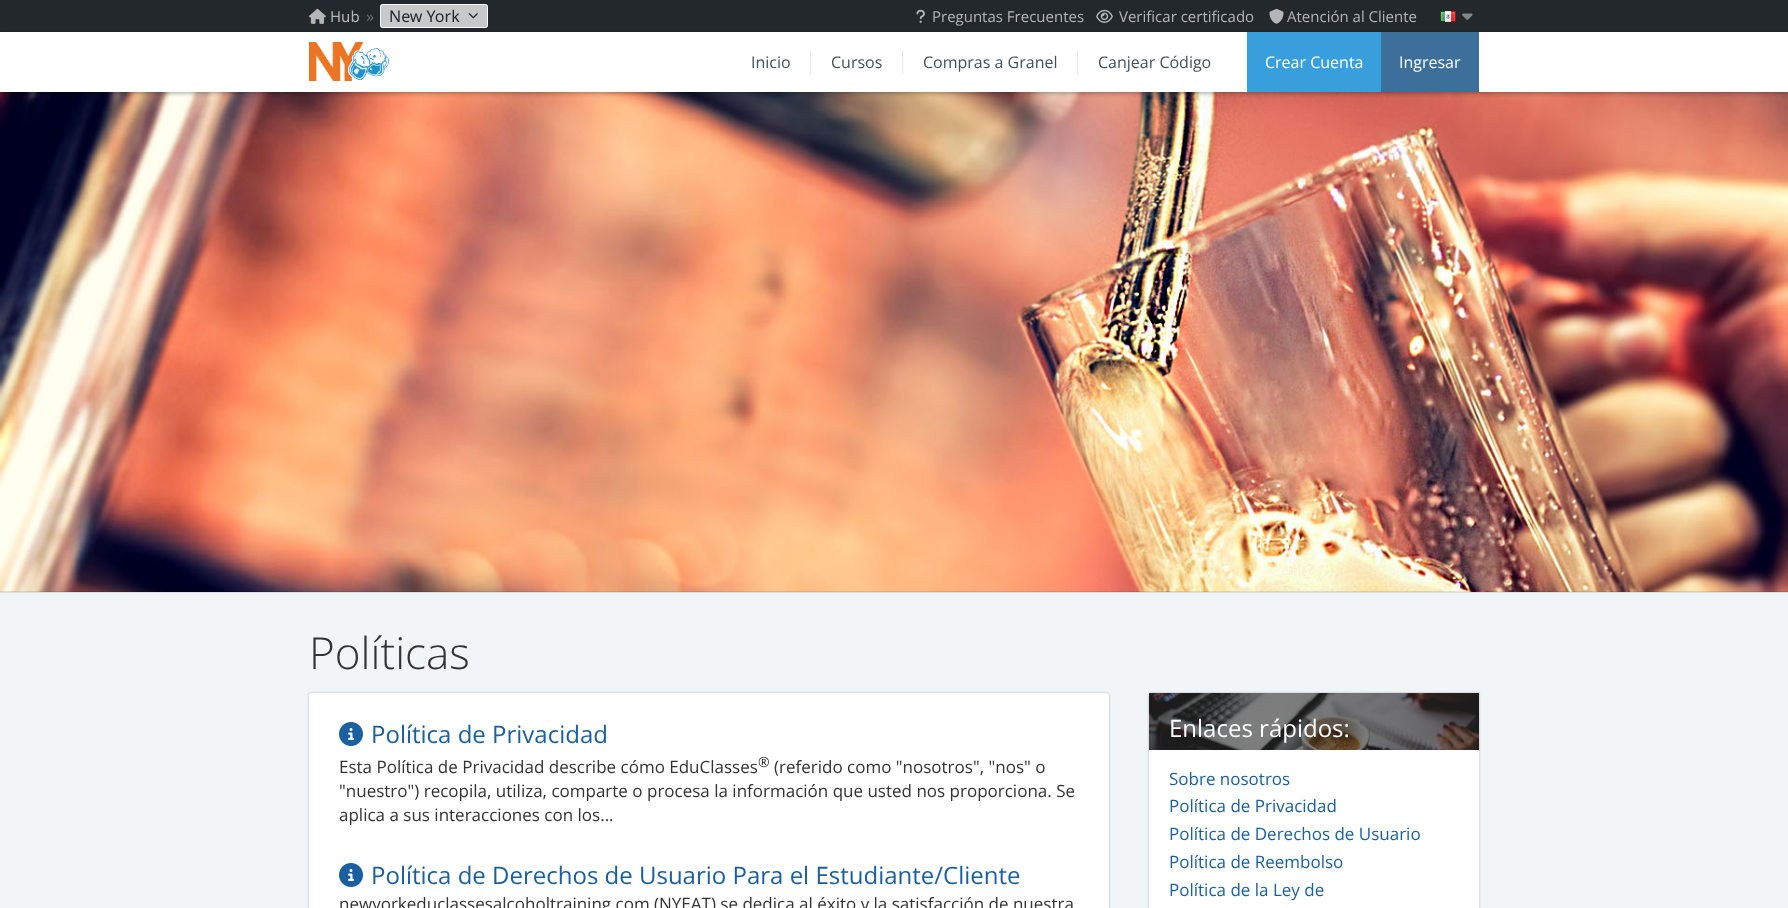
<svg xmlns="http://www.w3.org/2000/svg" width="1788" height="908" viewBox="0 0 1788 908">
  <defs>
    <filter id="blur1" x="-50%" y="-200%" width="200%" height="500%"><feGaussianBlur stdDeviation="2.5"/></filter>
    <filter id="blur2" x="-50%" y="-200%" width="200%" height="500%"><feGaussianBlur stdDeviation="1"/></filter>
  </defs>
  <rect width="100%" height="100%" fill="#23282d"/>
  <image x="309" y="8" width="17" height="16" href="img1.png"/>
  <text x="330" y="22" font-family="Noto Sans" font-size="15" fill="#b4b6b8">Hub</text>
  <text x="366" y="22" font-family="Noto Sans" font-size="16" fill="#6c6f72">»</text>
  <image x="0" y="92" width="1788" height="500" href="img9.png"/>
  <rect x="0" y="33" width="1788" height="60" fill="#000000" fill-opacity="0.35" filter="url(#blur1)"/>
  <rect x="380" y="4" width="108" height="24" rx="3" fill="#c8c9ca"/>
  <rect x="380.5" y="4.5" width="107" height="23" rx="2.5" fill="none" stroke="#ffffff" stroke-opacity="0.85"/>
  <text x="389" y="22" font-family="Noto Sans" font-size="16" fill="#23282d">New York</text>
  <image x="468" y="13" width="10" height="6" href="img2.png"/>
  <image x="916" y="9" width="9" height="14" href="img3.png"/>
  <text x="932" y="22" font-family="Open Sans" font-size="15" fill="#b4b6b8">Preguntas Frecuentes</text>
  <image x="1096" y="9" width="17" height="14" href="img4.png"/>
  <text x="1119" y="22" font-family="Open Sans" font-size="15" fill="#b4b6b8">Verificar certificado</text>
  <image x="1269" y="8" width="15" height="16" href="img5.png"/>
  <text x="1287" y="22" font-family="Open Sans" font-size="15" fill="#b4b6b8">Atención al Cliente</text>
  <image x="1440" y="11" width="16" height="11" href="img6.png"/>
  <image x="1462" y="13" width="11" height="7" href="img7.png"/>
  <rect x="0" y="32" width="1788" height="60" fill="#ffffff"/>
  <image x="309" y="42" width="80" height="39" href="img8.png"/>
  <text x="751" y="68" font-family="Open Sans" font-size="16" fill="#485057">Inicio</text>
  <rect x="810" y="50" width="1" height="24" fill="#e6e6e6"/>
  <text x="831" y="68" font-family="Open Sans" font-size="16" fill="#485057">Cursos</text>
  <rect x="902" y="50" width="1" height="24" fill="#e6e6e6"/>
  <text x="923" y="68" font-family="Open Sans" font-size="16" fill="#485057">Compras a Granel</text>
  <rect x="1077" y="50" width="1" height="24" fill="#e6e6e6"/>
  <text x="1098" y="68" font-family="Open Sans" font-size="16" fill="#485057">Canjear Código</text>
  <rect x="1247" y="32" width="134" height="60" fill="#389fdc"/>
  <text x="1265" y="68" font-family="Open Sans" font-size="16" fill="#ffffff">Crear Cuenta</text>
  <rect x="1381" y="32" width="98" height="60" fill="#3d6f9b"/>
  <text x="1399" y="68" font-family="Open Sans" font-size="16" fill="#ffffff">Ingresar</text>
  <rect x="0" y="591" width="1788" height="1" fill="#000000" fill-opacity="0.1"/>
  <rect x="0" y="592" width="1788" height="1" fill="#dcdedf"/>
  <rect x="0" y="593" width="1788" height="315" fill="#f2f5f7"/>
  <rect x="309" y="693" width="800" height="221" rx="3" fill="#25333c" fill-opacity="0.35" filter="url(#blur2)"/>
  <rect x="309" y="693" width="800" height="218" rx="3" fill="#ffffff"/>
  <text x="309" y="669" font-family="Open Sans" font-size="44" font-weight="300" fill="#333333">Políticas</text>
  <image x="339" y="722" width="24" height="24" href="img10.png"/>
  <text x="371" y="743" font-family="Open Sans" font-size="24" fill="#1a5f9f">Política de Privacidad</text>
  <text x="339" y="773" font-family="Open Sans" font-size="17" fill="#333333">Esta Política de Privacidad describe cómo EduClasses</text>
  <text x="758" y="767" font-family="Open Sans" font-size="14" fill="#333333">®</text>
  <text x="774" y="773" font-family="Open Sans" font-size="17" fill="#333333">(referido como "nosotros", "nos" o</text>
  <text x="339" y="797" font-family="Open Sans" font-size="17" fill="#333333">"nuestro") recopila, utiliza, comparte o procesa la información que usted nos proporciona. Se</text>
  <text x="339" y="821" font-family="Open Sans" font-size="17" fill="#333333">aplica a sus interacciones con los...</text>
  <image x="339" y="863" width="24" height="24" href="img10.png"/>
  <text x="371" y="884" font-family="Open Sans" font-size="24" fill="#1a5f9f">Política de Derechos de Usuario Para el Estudiante/Cliente</text>
  <text x="339" y="910" font-family="Open Sans" font-size="17" fill="#333333">newyorkeduclassesalcoholtraining.com (NYEAT) se dedica al éxito y la satisfacción de nuestra</text>
  <rect x="1149" y="693" width="330" height="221" rx="3" fill="#25333c" fill-opacity="0.35" filter="url(#blur2)"/>
  <rect x="1149" y="750" width="330" height="158" fill="#ffffff"/>
  <image x="1149" y="693" width="330" height="57" href="img11.png"/>
  <text x="1169" y="737" font-family="Open Sans" font-size="24" fill="#ffffff">Enlaces rápidos:</text>
  <text x="1169" y="785" font-family="Open Sans" font-size="17" fill="#1a5f9f">Sobre nosotros</text>
  <text x="1169" y="812" font-family="Open Sans" font-size="17" fill="#1a5f9f">Política de Privacidad</text>
  <text x="1169" y="840" font-family="Open Sans" font-size="17" fill="#1a5f9f">Política de Derechos de Usuario</text>
  <text x="1169" y="868" font-family="Open Sans" font-size="17" fill="#1a5f9f">Política de Reembolso</text>
  <text x="1169" y="896" font-family="Open Sans" font-size="17" fill="#1a5f9f">Política de la Ley de</text>
</svg>
